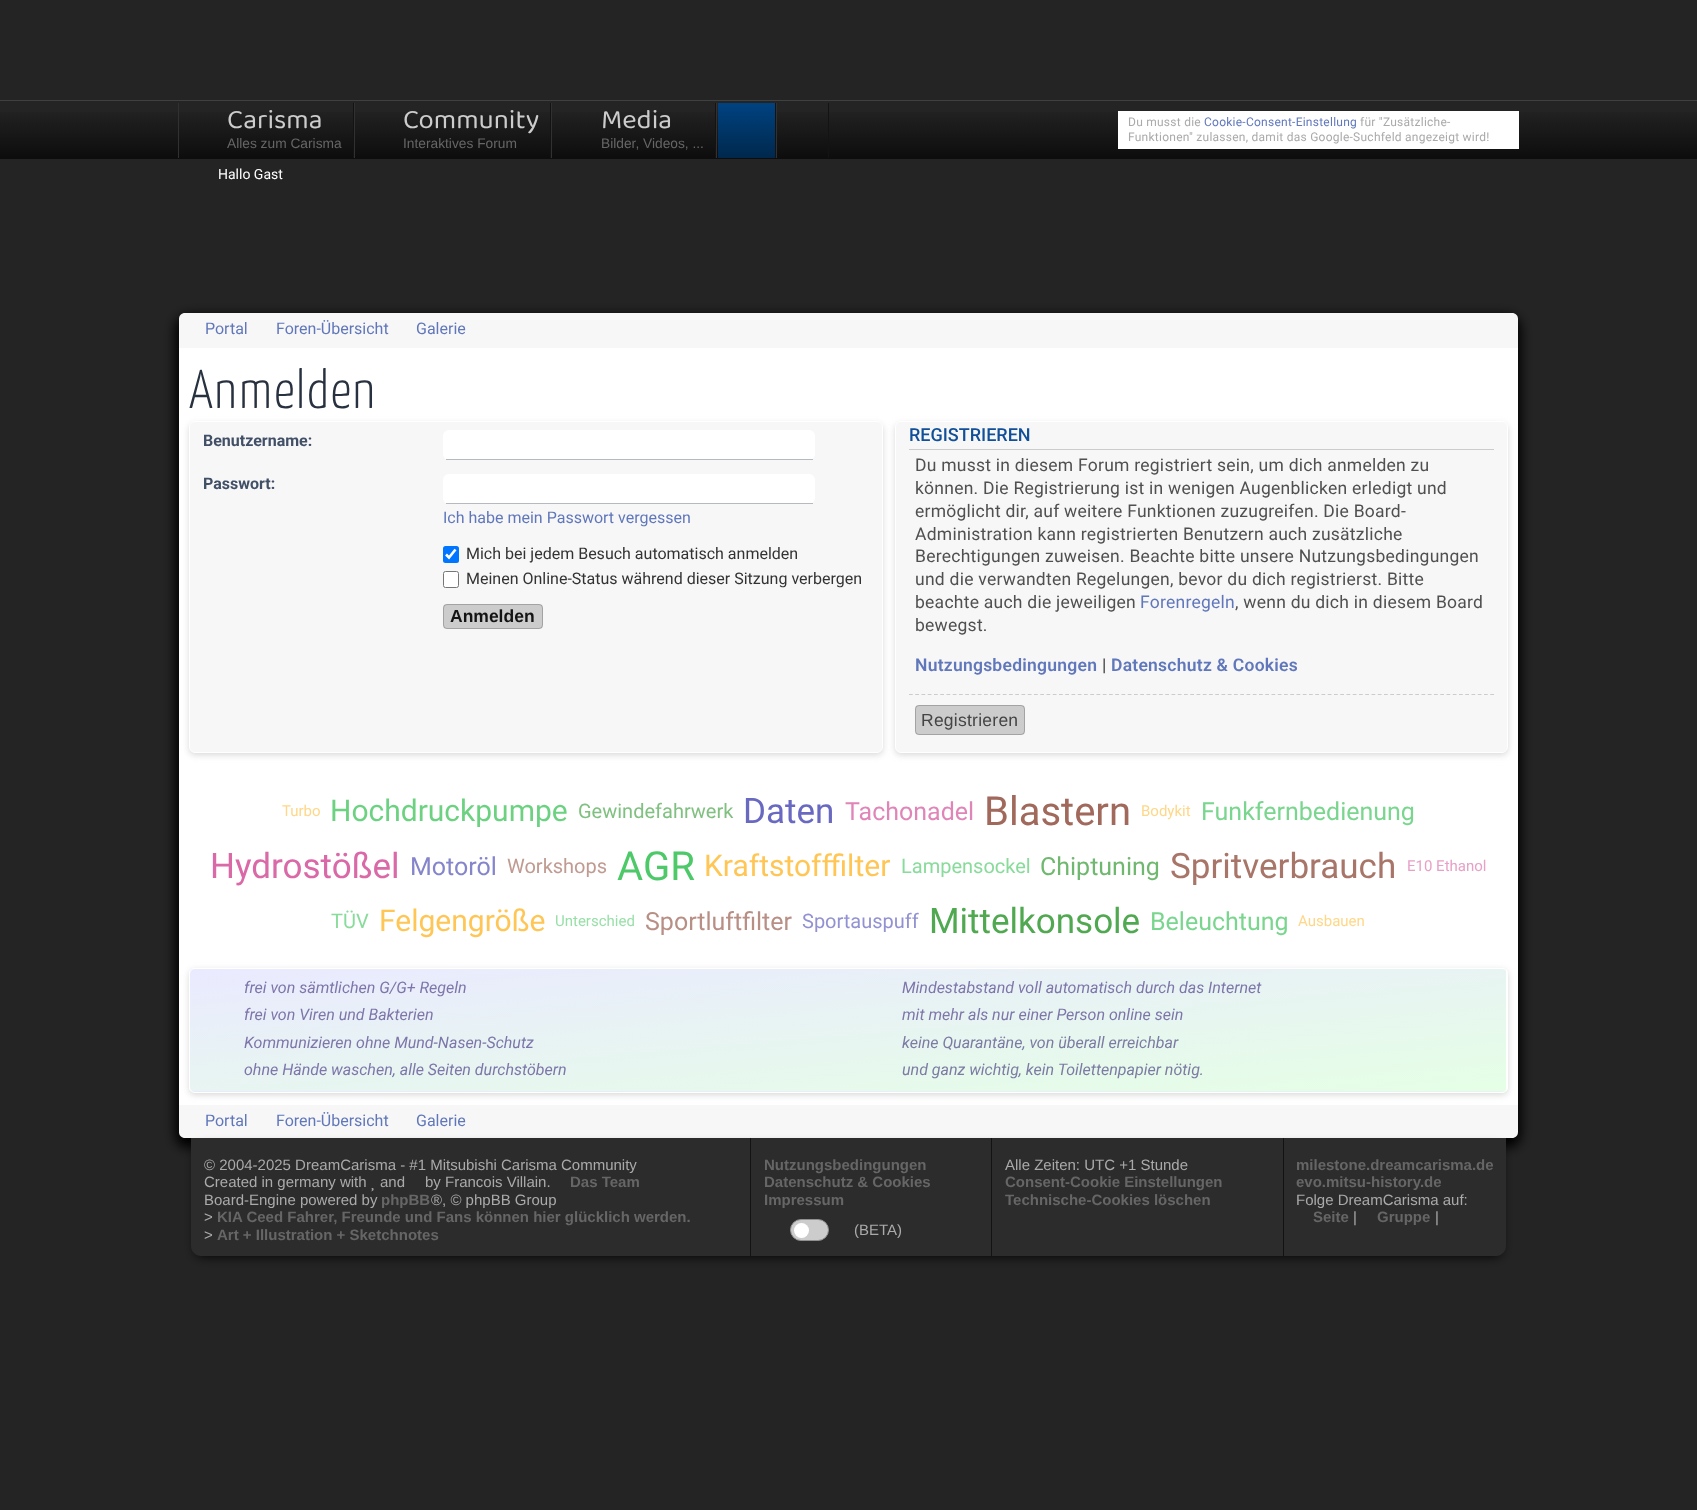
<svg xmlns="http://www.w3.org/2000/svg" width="1697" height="1510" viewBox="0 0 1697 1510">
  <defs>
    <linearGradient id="g1" gradientUnits="userSpaceOnUse" x1="849" y1="101" x2="849" y2="158"><stop offset="0.01" stop-color="#262626"/><stop offset="1" stop-color="#0d0d0d"/></linearGradient>
    <linearGradient id="g2" gradientUnits="userSpaceOnUse" x1="746" y1="103" x2="746" y2="158"><stop offset="0.01" stop-color="#004280"/><stop offset="1" stop-color="#00284d"/></linearGradient>
    <filter id="blur1" x="-50%" y="-200%" width="200%" height="500%"><feGaussianBlur stdDeviation="6"/></filter>
    <filter id="blur2" x="-50%" y="-200%" width="200%" height="500%"><feGaussianBlur stdDeviation="3"/></filter>
    <clipPath id="clip1"><path d="M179 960H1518V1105H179ZM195 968H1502C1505.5 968 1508 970.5 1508 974V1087C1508 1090.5 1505.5 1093 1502 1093H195C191.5 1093 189 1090.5 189 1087V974C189 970.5 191.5 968 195 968Z" clip-rule="evenodd"/></clipPath>
    <clipPath id="clip2"><rect x="189" y="968" width="1319" height="125" rx="6"/></clipPath>
    <linearGradient id="g3" gradientUnits="userSpaceOnUse" x1="838" y1="912" x2="858" y2="1148"><stop offset="0" stop-color="#d5d5ff" stop-opacity="0.5"/><stop offset="1" stop-color="#cbffcb" stop-opacity="0.5"/></linearGradient>
    <linearGradient id="g4" gradientUnits="userSpaceOnUse" x1="838" y1="1035" x2="858" y2="1270"><stop offset="0" stop-color="#d5d5ff" stop-opacity="0.5"/><stop offset="1" stop-color="#cbffcb" stop-opacity="0.5"/></linearGradient>
  </defs>
  <rect width="100%" height="100%" fill="#242424"/>
  <rect x="0" y="112" width="1697" height="46" fill="url(#g1)"/>
  <rect x="0" y="100" width="1697" height="1" fill="#404040"/>
  <rect x="0" y="158" width="1697" height="1" fill="#0d0d0d"/>
  <rect x="353" y="103" width="1" height="55" fill="#131313"/>
  <rect x="178" y="103" width="1" height="55" fill="#313131"/>
  <text x="227" y="128" font-family="'Baloo Bhaina 2'" font-size="27.5" fill="#cccccc">Carisma</text>
  <text x="227" y="148" font-family="Liberation Sans" font-size="13.75" fill="#666666">Alles zum Carisma</text>
  <rect x="550" y="103" width="1" height="55" fill="#131313"/>
  <rect x="354" y="103" width="1" height="55" fill="#313131"/>
  <text x="403" y="128" font-family="'Baloo Bhaina 2'" font-size="27.5" fill="#cccccc">Community</text>
  <text x="403" y="148" font-family="Liberation Sans" font-size="13.75" fill="#666666">Interaktives Forum</text>
  <rect x="715" y="103" width="1" height="55" fill="#131313"/>
  <rect x="551" y="103" width="1" height="55" fill="#313131"/>
  <text x="601" y="128" font-family="'Baloo Bhaina 2'" font-size="27.5" fill="#cccccc">Media</text>
  <text x="601" y="148" font-family="Liberation Sans" font-size="13.75" fill="#666666">Bilder, Videos, ...</text>
  <rect x="775" y="103" width="1" height="55" fill="#131313"/>
  <rect x="716" y="103" width="1" height="55" fill="#313131"/>
  <rect x="718" y="103" width="57" height="55" fill="url(#g2)"/>
  <rect x="828" y="103" width="1" height="55" fill="#131313"/>
  <rect x="776" y="103" width="1" height="55" fill="#313131"/>
  <rect x="1118" y="111" width="401" height="38" fill="#ffffff"/>
  <text x="1128" y="126" font-family="Roboto" font-size="12" letter-spacing="0.25" fill="#aaaaaa">Du musst die</text>
  <text x="1204" y="126" font-family="Roboto" font-size="12" letter-spacing="0.25" fill="#6077bb">Cookie-Consent-Einstellung</text>
  <text x="1360" y="126" font-family="Roboto" font-size="12" letter-spacing="0.25" fill="#aaaaaa">für "Zusätzliche-</text>
  <text x="1128" y="141" font-family="Roboto" font-size="12" letter-spacing="0.25" fill="#aaaaaa">Funktionen" zulassen, damit das Google-Suchfeld angezeigt wird!</text>
  <text x="218" y="179" font-family="Roboto" font-size="14" fill="#ffffff">Hallo Gast</text>
  <rect x="175" y="315" width="1346" height="833" rx="14" fill="#000000" filter="url(#blur1)"/>
  <rect x="179" y="313" width="1339" height="825" rx="10" fill="#ffffff"/>
  <path d="M185 313H1512C1515.5 313 1518 315.5 1518 319V348H179V319C179 315.5 181.5 313 185 313Z" fill="#f7f7f7"/>
  <text x="205" y="334" font-family="Roboto" font-size="16" fill="#6077bb">Portal</text>
  <text x="276" y="334" font-family="Roboto" font-size="16" fill="#6077bb">Foren-Übersicht</text>
  <text x="416" y="334" font-family="Roboto" font-size="16" fill="#6077bb">Galerie</text>
  <text x="189" y="408" font-family="Yanone Kaffeesatz" font-size="54.5" font-weight="300" letter-spacing="1.5" fill="#28313f">Anmelden</text>
  <rect x="189" y="424" width="694" height="331" rx="6" fill="#cccccc" fill-opacity="0.75" filter="url(#blur2)"/>
  <rect x="189.5" y="421.5" width="693" height="331" rx="5.5" fill="#f7f7f7" stroke="#ffffff"/>
  <text x="203" y="446" font-family="Roboto" font-size="16" font-weight="bold" fill="#425067">Benutzername:</text>
  <rect x="443" y="430" width="372" height="30" rx="6" fill="#ffffff"/>
  <rect x="446" y="459" width="367" height="1" fill="#b4bac0"/>
  <text x="203" y="489" font-family="Roboto" font-size="16" font-weight="bold" fill="#425067">Passwort:</text>
  <rect x="443" y="474" width="372" height="30" rx="6" fill="#ffffff"/>
  <rect x="446" y="503" width="367" height="1" fill="#b4bac0"/>
  <text x="443" y="523" font-family="Roboto" font-size="16" fill="#6077bb">Ich habe mein Passwort vergessen</text>
  <rect x="443" y="546" width="16" height="17" rx="2.5" fill="#0075ff"/>
  <path d="M446 554.5L449 557.5L455.5 549.5" fill="none" stroke="#ffffff" stroke-width="2.6"/>
  <text x="466" y="559" font-family="Roboto" font-size="16" fill="#333333">Mich bei jedem Besuch automatisch anmelden</text>
  <rect x="443.5" y="571.5" width="15" height="16" rx="2" fill="#ffffff" stroke="#767676"/>
  <text x="466" y="584" font-family="Roboto" font-size="16" fill="#333333">Meinen Online-Status während dieser Sitzung verbergen</text>
  <rect x="443" y="604" width="100" height="25" rx="4" fill="#cccccc"/>
  <rect x="443.5" y="604.5" width="99" height="24" rx="3.5" fill="none" stroke="#000000" stroke-opacity="0.2"/>
  <text x="450" y="622" font-family="Liberation Sans" font-size="17.5" font-weight="bold" fill="#141414">Anmelden</text>
  <rect x="895" y="424" width="613" height="331" rx="6" fill="#cccccc" fill-opacity="0.75" filter="url(#blur2)"/>
  <rect x="895.5" y="421.5" width="612" height="331" rx="5.5" fill="#f7f7f7" stroke="#ffffff"/>
  <rect x="909" y="449" width="585" height="1" fill="#cccccc"/>
  <text x="909" y="441" font-family="Roboto" font-size="18" font-weight="500" fill="#115098">REGISTRIEREN</text>
  <text x="915" y="471" font-family="Roboto" font-size="17.5" letter-spacing="0.25" fill="#505050">Du musst in diesem Forum registriert sein, um dich anmelden zu</text>
  <text x="915" y="494" font-family="Roboto" font-size="17.5" letter-spacing="0.25" fill="#505050">können. Die Registrierung ist in wenigen Augenblicken erledigt und</text>
  <text x="915" y="517" font-family="Roboto" font-size="17.5" letter-spacing="0.25" fill="#505050">ermöglicht dir, auf weitere Funktionen zuzugreifen. Die Board-</text>
  <text x="915" y="540" font-family="Roboto" font-size="17.5" letter-spacing="0.25" fill="#505050">Administration kann registrierten Benutzern auch zusätzliche</text>
  <text x="915" y="562" font-family="Roboto" font-size="17.5" letter-spacing="0.25" fill="#505050">Berechtigungen zuweisen. Beachte bitte unsere Nutzungsbedingungen</text>
  <text x="915" y="585" font-family="Roboto" font-size="17.5" letter-spacing="0.25" fill="#505050">und die verwandten Regelungen, bevor du dich registrierst. Bitte</text>
  <text x="915" y="608" font-family="Roboto" font-size="17.5" letter-spacing="0.25" fill="#505050">beachte auch die jeweiligen</text>
  <text x="1140" y="608" font-family="Roboto" font-size="17.5" letter-spacing="0.25" fill="#6077bb">Forenregeln</text>
  <text x="1235" y="608" font-family="Roboto" font-size="17.5" letter-spacing="0.25" fill="#505050">, wenn du dich in diesem Board</text>
  <text x="915" y="631" font-family="Roboto" font-size="17.5" letter-spacing="0.25" fill="#505050">bewegst.</text>
  <text x="915" y="671" font-family="Roboto" font-size="17.5" font-weight="600" letter-spacing="0.25" fill="#6077bb">Nutzungsbedingungen</text>
  <text x="1102" y="671" font-family="Roboto" font-size="17.5" font-weight="600" letter-spacing="0.25" fill="#505050">|</text>
  <text x="1111" y="671" font-family="Roboto" font-size="17.5" font-weight="600" letter-spacing="0.25" fill="#6077bb">Datenschutz &amp; Cookies</text>
  <path d="M909 694.5H1494" fill="none" stroke="#cccccc" stroke-width="1.2" stroke-dasharray="3.75 2.5"/>
  <rect x="915" y="705" width="110" height="30" rx="4" fill="#cccccc"/>
  <rect x="915.5" y="705.5" width="109" height="29" rx="3.5" fill="none" stroke="#000000" stroke-opacity="0.2"/>
  <text x="921" y="726" font-family="Liberation Sans" font-size="17.5" letter-spacing="0.25" fill="#444444">Registrieren</text>
  <text x="282" y="816" font-family="Roboto" font-size="15" fill="#ffd788">Turbo</text>
  <text x="330" y="821" font-family="Roboto" font-size="30" fill="#6cd282">Hochdruckpumpe</text>
  <text x="578" y="818" font-family="Roboto" font-size="20" fill="#80c080">Gewindefahrwerk</text>
  <text x="743" y="823" font-family="Roboto" font-size="35" fill="#6969c1">Daten</text>
  <text x="845" y="820" font-family="Roboto" font-size="25" fill="#e085b8">Tachonadel</text>
  <text x="984" y="825" font-family="Roboto" font-size="40" fill="#a0695c">Blastern</text>
  <text x="1141" y="816" font-family="Roboto" font-size="15" fill="#ffd788">Bodykit</text>
  <text x="1201" y="820" font-family="Roboto" font-size="25" fill="#7ad68f">Funkfernbedienung</text>
  <text x="210" y="878" font-family="Roboto" font-size="35" fill="#da69a8">Hydrostößel</text>
  <text x="410" y="875" font-family="Roboto" font-size="25" fill="#8585cc">Motoröl</text>
  <text x="507" y="873" font-family="Roboto" font-size="20" fill="#c09b92">Workshops</text>
  <text x="617" y="880" font-family="Roboto" font-size="40" fill="#4ec969">AGR</text>
  <text x="704" y="876" font-family="Roboto" font-size="30" fill="#ffc655">Kraftstofffilter</text>
  <text x="901" y="873" font-family="Roboto" font-size="20" fill="#89db9b">Lampensockel</text>
  <text x="1040" y="875" font-family="Roboto" font-size="25" fill="#70b870">Chiptuning</text>
  <text x="1170" y="878" font-family="Roboto" font-size="35" fill="#a87669">Spritverbrauch</text>
  <text x="1407" y="871" font-family="Roboto" font-size="15" fill="#e7a0c7">E10 Ethanol</text>
  <text x="331" y="928" font-family="Roboto" font-size="20" fill="#89db9b">TÜV</text>
  <text x="379" y="931" font-family="Roboto" font-size="30" fill="#ffc655">Felgengröße</text>
  <text x="555" y="926" font-family="Roboto" font-size="15" fill="#98dfa8">Unterschied</text>
  <text x="645" y="930" font-family="Roboto" font-size="25" fill="#b88f85">Sportluftfilter</text>
  <text x="802" y="928" font-family="Roboto" font-size="20" fill="#9292d2">Sportauspuff</text>
  <text x="929" y="933" font-family="Roboto" font-size="35" fill="#50a850">Mittelkonsole</text>
  <text x="1150" y="930" font-family="Roboto" font-size="25" fill="#7ad68f">Beleuchtung</text>
  <text x="1298" y="926" font-family="Roboto" font-size="15" fill="#ffd788">Ausbauen</text>
  <g clip-path="url(#clip1)">
    <rect x="189" y="970" width="1319" height="125" rx="6" fill="#cccccc" fill-opacity="0.75" filter="url(#blur2)"/>
  </g>
  <g clip-path="url(#clip2)">
    <rect x="190" y="969" width="1316" height="122" fill="url(#g3)"/>
    <rect x="190" y="1091" width="1316" height="2" fill="url(#g4)"/>
  </g>
  <rect x="189.5" y="968.5" width="1318" height="124" rx="5.5" fill="none" stroke="#ffffff"/>
  <text x="244" y="993" font-family="Roboto" font-size="16" font-style="italic" fill="#7e76aa">frei von sämtlichen G/G+ Regeln</text>
  <text x="244" y="1020" font-family="Roboto" font-size="16" font-style="italic" fill="#7e76aa">frei von Viren und Bakterien</text>
  <text x="244" y="1048" font-family="Roboto" font-size="16" font-style="italic" fill="#7e76aa">Kommunizieren ohne Mund-Nasen-Schutz</text>
  <text x="244" y="1075" font-family="Roboto" font-size="16" font-style="italic" fill="#7e76aa">ohne Hände waschen, alle Seiten durchstöbern</text>
  <text x="902" y="993" font-family="Roboto" font-size="16" font-style="italic" fill="#7e76aa">Mindestabstand voll automatisch durch das Internet</text>
  <text x="902" y="1020" font-family="Roboto" font-size="16" font-style="italic" fill="#7e76aa">mit mehr als nur einer Person online sein</text>
  <text x="902" y="1048" font-family="Roboto" font-size="16" font-style="italic" fill="#7d7ba4">keine Quarantäne, von überall erreichbar</text>
  <text x="902" y="1075" font-family="Roboto" font-size="16" font-style="italic" fill="#7d7ba4">und ganz wichtig, kein Toilettenpapier nötig.</text>
  <path d="M179 1105H1518V1132C1518 1135.5 1515.5 1138 1512 1138H185C181.5 1138 179 1135.5 179 1132Z" fill="#f7f7f7"/>
  <text x="205" y="1126" font-family="Roboto" font-size="16" fill="#6077bb">Portal</text>
  <text x="276" y="1126" font-family="Roboto" font-size="16" fill="#6077bb">Foren-Übersicht</text>
  <text x="416" y="1126" font-family="Roboto" font-size="16" fill="#6077bb">Galerie</text>
  <rect x="196" y="1148" width="1305" height="108" rx="5" fill="#000000" filter="url(#blur1)"/>
  <path d="M191 1138H1506V1246C1506 1251.5 1501.5 1256 1496 1256H201C195.5 1256 191 1251.5 191 1246Z" fill="#2c2c2c"/>
  <text x="204" y="1170" font-family="Liberation Sans" font-size="15" fill="#aaaaaa">© 2004-2025 DreamCarisma - #1 Mitsubishi Carisma Community</text>
  <text x="204" y="1187" font-family="Liberation Sans" font-size="15" fill="#aaaaaa">Created in germany with</text>
  <text x="380" y="1187" font-family="Liberation Sans" font-size="15" fill="#aaaaaa">and</text>
  <text x="425" y="1187" font-family="Liberation Sans" font-size="15" fill="#aaaaaa">by Francois Villain.</text>
  <text x="570" y="1187" font-family="Liberation Sans" font-size="15" font-weight="bold" fill="#666666">Das Team</text>
  <image x="371" y="1188" width="3" height="4" href="img1.png"/>
  <text x="204" y="1205" font-family="Liberation Sans" font-size="15" fill="#aaaaaa">Board-Engine powered by</text>
  <text x="381" y="1205" font-family="Liberation Sans" font-size="15" font-weight="bold" fill="#666666">phpBB</text>
  <text x="431" y="1205" font-family="Liberation Sans" font-size="15" fill="#aaaaaa">®, © phpBB Group</text>
  <text x="204" y="1222" font-family="Liberation Sans" font-size="15" fill="#aaaaaa">&gt;</text>
  <text x="217" y="1222" font-family="Liberation Sans" font-size="15" font-weight="bold" fill="#666666">KIA Ceed Fahrer, Freunde und Fans können hier glücklich werden.</text>
  <text x="204" y="1240" font-family="Liberation Sans" font-size="15" fill="#aaaaaa">&gt;</text>
  <text x="217" y="1240" font-family="Liberation Sans" font-size="15" font-weight="bold" fill="#666666">Art + Illustration + Sketchnotes</text>
  <rect x="750" y="1138" width="1" height="118" fill="#131313"/>
  <text x="764" y="1170" font-family="Liberation Sans" font-size="15" font-weight="bold" fill="#666666">Nutzungsbedingungen</text>
  <text x="764" y="1187" font-family="Liberation Sans" font-size="15" font-weight="bold" fill="#666666">Datenschutz &amp; Cookies</text>
  <text x="764" y="1205" font-family="Liberation Sans" font-size="15" font-weight="bold" fill="#666666">Impressum</text>
  <rect x="790.5" y="1219.5" width="38" height="21" rx="10.5" fill="#cccccc" stroke="#909090"/>
  <circle cx="801.5" cy="1230.5" r="7.5" fill="#ffffff"/>
  <text x="854" y="1235" font-family="Liberation Sans" font-size="15" fill="#aaaaaa">(BETA)</text>
  <rect x="991" y="1138" width="1" height="118" fill="#131313"/>
  <text x="1005" y="1170" font-family="Liberation Sans" font-size="15" fill="#aaaaaa">Alle Zeiten: UTC +1 Stunde</text>
  <text x="1005" y="1187" font-family="Liberation Sans" font-size="15" font-weight="bold" fill="#666666">Consent-Cookie Einstellungen</text>
  <text x="1005" y="1205" font-family="Liberation Sans" font-size="15" font-weight="bold" fill="#666666">Technische-Cookies löschen</text>
  <rect x="1283" y="1138" width="1" height="118" fill="#131313"/>
  <text x="1296" y="1170" font-family="Liberation Sans" font-size="15" font-weight="bold" fill="#666666">milestone.dreamcarisma.de</text>
  <text x="1296" y="1187" font-family="Liberation Sans" font-size="15" font-weight="bold" fill="#666666">evo.mitsu-history.de</text>
  <text x="1296" y="1205" font-family="Liberation Sans" font-size="15" fill="#aaaaaa">Folge DreamCarisma auf:</text>
  <text x="1313" y="1222" font-family="Liberation Sans" font-size="15" font-weight="bold" fill="#666666">Seite</text>
  <text x="1353" y="1222" font-family="Liberation Sans" font-size="15" fill="#aaaaaa">|</text>
  <text x="1377" y="1222" font-family="Liberation Sans" font-size="15" font-weight="bold" fill="#666666">Gruppe</text>
  <text x="1435" y="1222" font-family="Liberation Sans" font-size="15" fill="#aaaaaa">|</text>
</svg>
